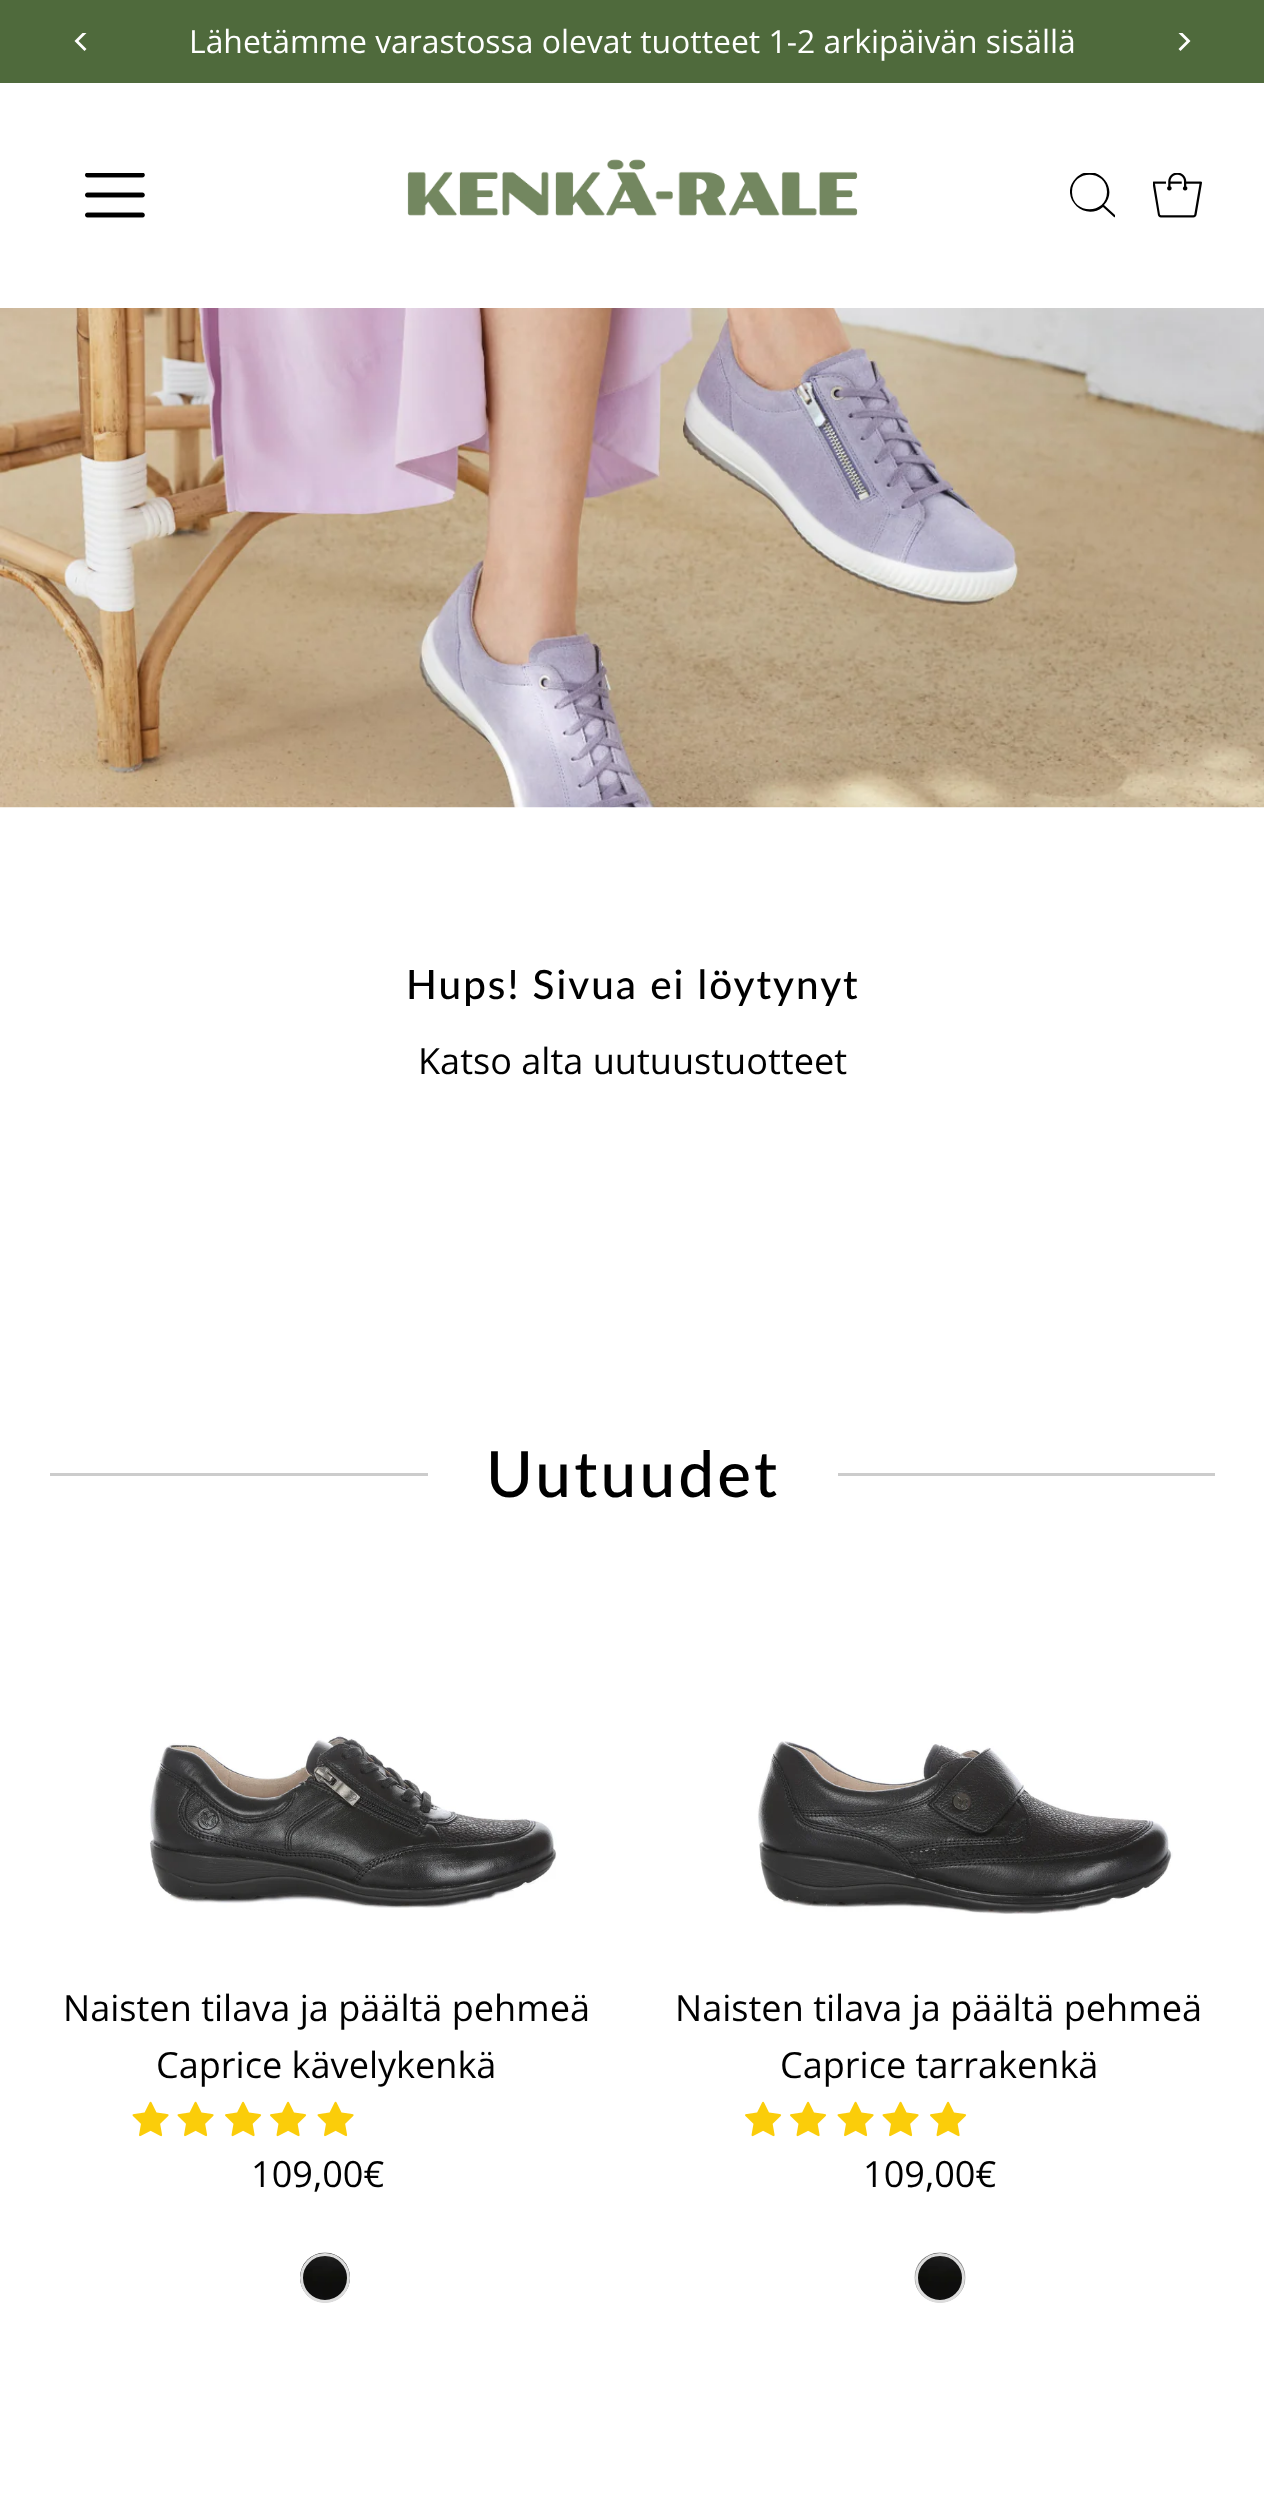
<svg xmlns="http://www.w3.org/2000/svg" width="1264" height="2503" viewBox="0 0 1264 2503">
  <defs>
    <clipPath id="clip1"><rect x="73" y="33" width="20" height="20"/></clipPath>
    <clipPath id="clip2"><rect x="1173" y="33" width="20" height="20"/></clipPath>
    <clipPath id="clip3"><rect x="1070" y="173" width="45" height="45"/></clipPath>
  </defs>
  <rect width="100%" height="100%" fill="#ffffff"/>
  <rect x="0" y="0" width="1264" height="83" fill="#4f6a3c"/>
  <g clip-path="url(#clip1)">
    <path d="M74.5 41L84.5 51L86.5 49L78.5 41L86.5 33L84.5 31Z" fill="#ffffff"/>
  </g>
  <text x="189" y="53" font-family="Open Sans" font-size="31.9" fill="#ffffff">Lähetämme varastossa olevat tuotteet 1-2 arkipäivän sisällä</text>
  <g clip-path="url(#clip2)">
    <path d="M1190.5 41L1180.5 31L1178.5 33L1186.5 41L1178.5 49L1180.5 51Z" fill="#ffffff"/>
  </g>
  <image x="85" y="173" width="60" height="45" href="img1.png"/>
  <image x="407" y="159" width="451" height="57" href="img2.png"/>
  <g clip-path="url(#clip3)">
    <path d="M1115 215L1104 205C1121 187 1094 160 1076 178C1058 196 1084 223 1103 207L1114 217C1115 218 1116 216 1115 215ZM1072 192C1072 169 1107 169 1107 192C1107 215 1072 215 1072 192Z" fill="#000000"/>
  </g>
  <image x="1153" y="173" width="49" height="45" href="img3.png"/>
  <image x="0" y="308" width="1264" height="500" href="img4.png"/>
  <text x="406" y="999" font-family="Lato" font-size="40.4" font-weight="500" letter-spacing="2" fill="#000000">Hups! Sivua ei löytynyt</text>
  <text x="418" y="1074" font-family="Open Sans" font-size="36.1" fill="#000000">Katso alta uutuustuotteet</text>
  <rect x="50" y="1473" width="1165" height="3" fill="#cccccc"/>
  <rect x="428" y="1473" width="410" height="3" fill="#ffffff"/>
  <text x="486" y="1497" font-family="Lato" font-size="63.75" font-weight="500" letter-spacing="3.25" fill="#000000">Uutuudet</text>
  <image x="149" y="1735" width="408" height="173" href="img5.png"/>
  <text x="63" y="2021" font-family="Open Sans" font-size="36.1" fill="#000000">Naisten tilava ja päältä pehmeä</text>
  <text x="156" y="2078" font-family="Open Sans" font-size="36.1" fill="#000000">Caprice kävelykenkä</text>
  <image x="132" y="2101" width="37" height="36" href="img6.png"/>
  <image x="177" y="2101" width="37" height="36" href="img6.png"/>
  <image x="225" y="2101" width="37" height="36" href="img7.png"/>
  <image x="270" y="2101" width="37" height="36" href="img7.png"/>
  <image x="317" y="2101" width="37" height="36" href="img6.png"/>
  <text x="251" y="2187" font-family="Open Sans" font-size="36.1" fill="#000000">109,00€</text>
  <image x="300" y="2252" width="50" height="51" href="img8.png"/>
  <circle cx="325" cy="2278" r="23.5" fill="none" stroke="#dddddd" stroke-width="3"/>
  <image x="757" y="1741" width="416" height="173" href="img9.png"/>
  <text x="675" y="2021" font-family="Open Sans" font-size="36.1" fill="#000000">Naisten tilava ja päältä pehmeä</text>
  <text x="780" y="2078" font-family="Open Sans" font-size="36.1" fill="#000000">Caprice tarrakenkä</text>
  <image x="745" y="2101" width="37" height="36" href="img7.png"/>
  <image x="790" y="2101" width="37" height="36" href="img7.png"/>
  <image x="837" y="2101" width="37" height="36" href="img6.png"/>
  <image x="882" y="2101" width="37" height="36" href="img6.png"/>
  <image x="930" y="2101" width="37" height="36" href="img7.png"/>
  <text x="863" y="2187" font-family="Open Sans" font-size="36.1" fill="#000000">109,00€</text>
  <image x="914" y="2252" width="52" height="51" href="img10.png"/>
  <circle cx="940" cy="2278" r="23.5" fill="none" stroke="#dddddd" stroke-width="3"/>
</svg>
